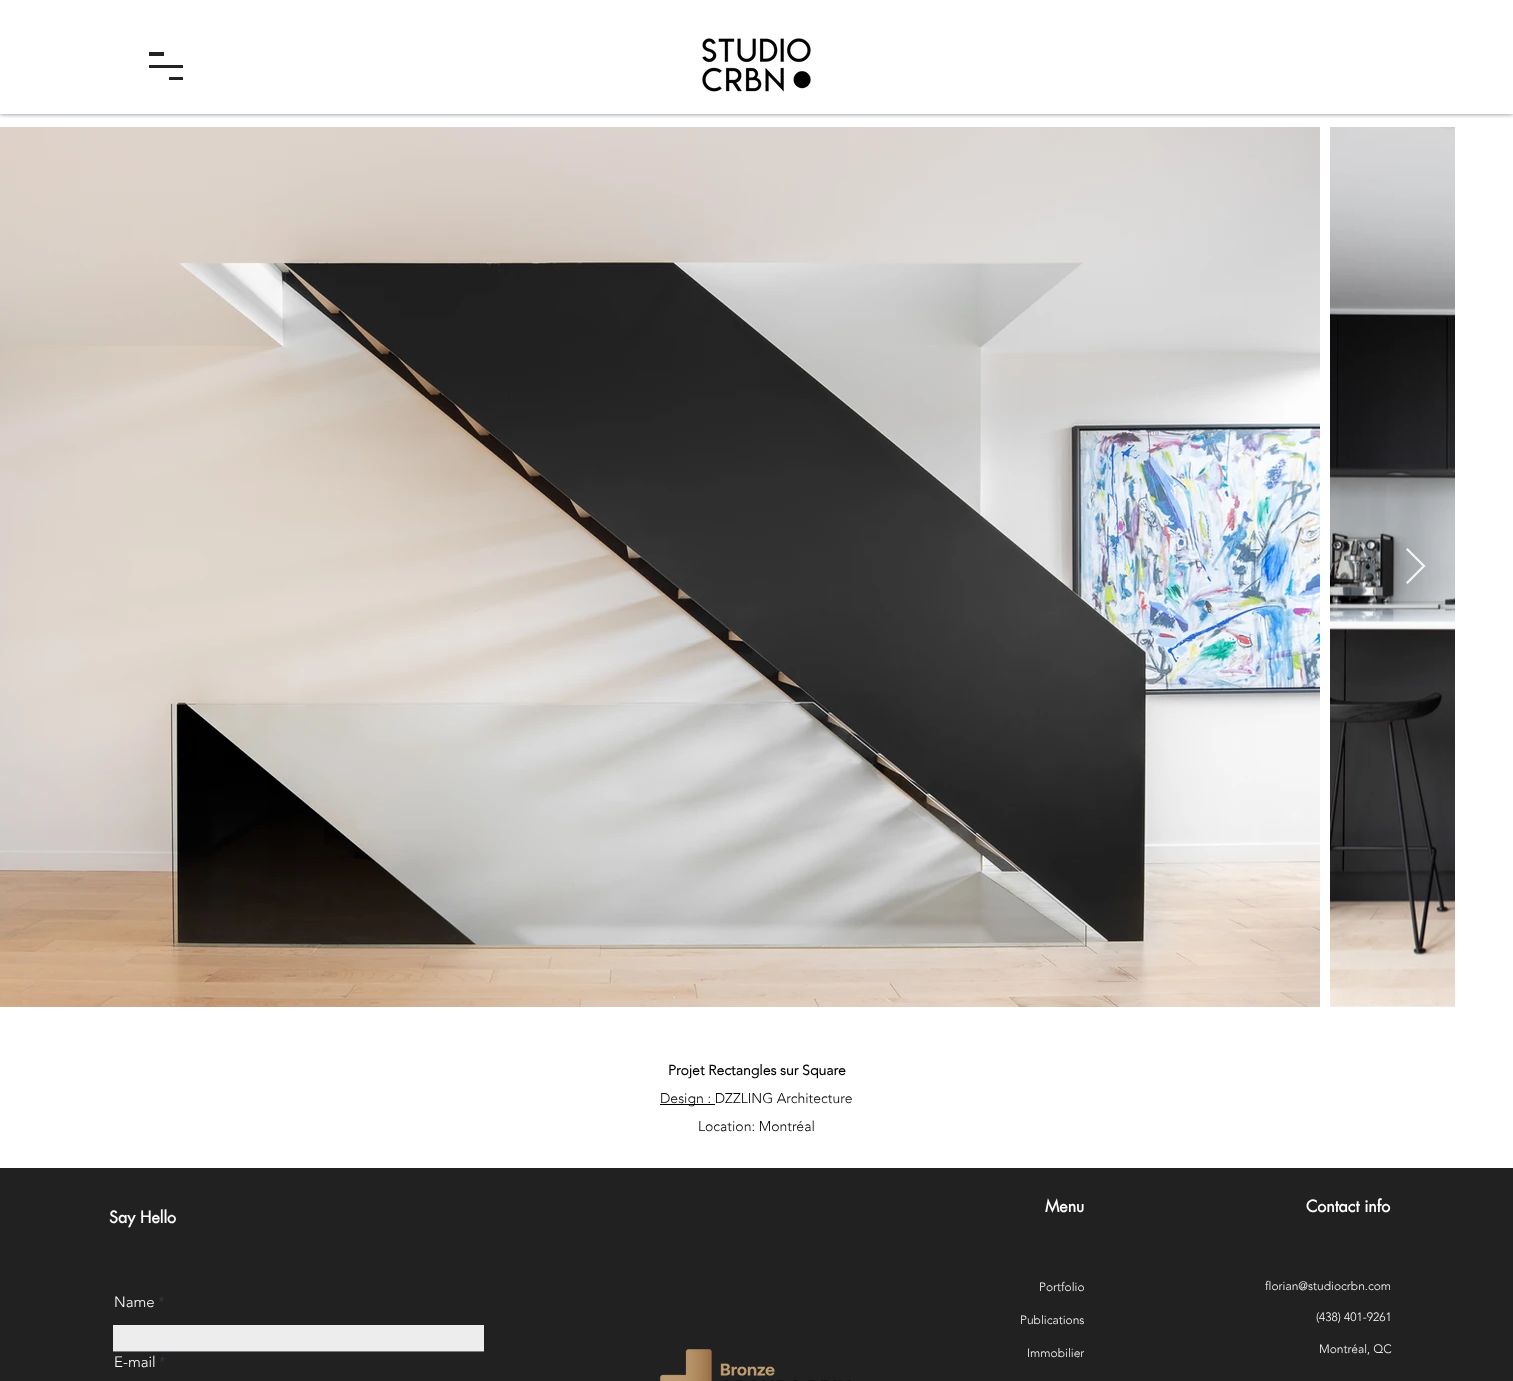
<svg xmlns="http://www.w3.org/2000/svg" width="1513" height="1381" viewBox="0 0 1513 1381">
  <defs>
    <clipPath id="clip1"><rect x="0" y="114" width="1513" height="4"/></clipPath>
    <filter id="blur1" x="-50%" y="-200%" width="200%" height="500%"><feGaussianBlur stdDeviation="2.5"/></filter>
  </defs>
  <rect width="100%" height="100%" fill="#ffffff"/>
  <g clip-path="url(#clip1)">
    <rect x="0" y="0" width="1513" height="114" fill="#000000" fill-opacity="0.5" filter="url(#blur1)"/>
  </g>
  <rect x="149" y="52" width="15" height="4" fill="#242323"/>
  <rect x="169" y="77" width="14" height="3" fill="#242323"/>
  <rect x="149" y="65" width="34" height="3" fill="#242323"/>
  <image x="702" y="38" width="109" height="54" href="img1.png"/>
  <image x="0" y="127" width="1320" height="880" href="img2.png"/>
  <image x="1330" y="127" width="125" height="880" href="img3.png"/>
  <path d="M1406 549.5L1407.5 548L1425.5 566L1407.5 584L1406 582.5L1422.5 566Z" fill="#ffffff" fill-opacity="0.9"/>
  <text x="668" y="1075" font-family="'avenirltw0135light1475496'" font-size="14" font-weight="bold" fill="#000000">Projet Rectangles sur Square</text>
  <rect x="660" y="1104" width="55" height="1" fill="#000000"/>
  <text x="660" y="1103" font-family="'avenirltw0135light1475496'" font-size="14" font-weight="300" fill="#000000">Design : DZZLING Architecture</text>
  <text x="698" y="1131" font-family="'avenirltw0135light1475496'" font-size="14" font-weight="300" fill="#000000">Location: Montréal</text>
  <rect x="0" y="1168" width="1513" height="213" fill="#212121"/>
  <text x="109" y="1223" font-family="futura" font-size="16" font-weight="bold" fill="#ffffff">Say Hello</text>
  <text x="114" y="1307" font-family="'avenirltw0135light1475496'" font-size="15" font-weight="300" fill="#ffffff">Name</text>
  <text x="158" y="1307" font-family="'avenirltw0135light1475496'" font-size="15" font-weight="300" fill="#373b4d">*</text>
  <rect x="113" y="1325" width="371" height="26" fill="#ededed"/>
  <rect x="113" y="1351" width="371" height="1" fill="#777985"/>
  <text x="114" y="1367" font-family="'avenirltw0135light1475496'" font-size="15" font-weight="300" fill="#ffffff">E-mail</text>
  <text x="159" y="1367" font-family="'avenirltw0135light1475496'" font-size="15" font-weight="300" fill="#373b4d">*</text>
  <image x="660" y="1349" width="191" height="32" href="img4.png"/>
  <text x="1045" y="1212" font-family="futura" font-size="16" font-weight="bold" fill="#ffffff">Menu</text>
  <text x="1306" y="1212" font-family="futura" font-size="16" font-weight="bold" fill="#ffffff">Contact info</text>
  <text x="1039" y="1291" font-family="'avenirltw0135light1475496'" font-size="12" font-weight="300" fill="#ffffff">Portfolio</text>
  <text x="1020" y="1324" font-family="'avenirltw0135light1475496'" font-size="12" font-weight="300" fill="#ffffff">Publications</text>
  <text x="1027" y="1357" font-family="'avenirltw0135light1475496'" font-size="12" font-weight="300" fill="#ffffff">Immobilier</text>
  <text x="1265" y="1290" font-family="'avenirltw0135light1475496'" font-size="12" font-weight="300" fill="#ffffff">florian@studiocrbn.com</text>
  <text x="1316" y="1321" font-family="'avenirltw0135light1475496'" font-size="12" font-weight="300" fill="#ffffff">(438) 401-9261</text>
  <text x="1319" y="1353" font-family="'avenirltw0135light1475496'" font-size="12" font-weight="300" fill="#ffffff">Montréal, QC</text>
</svg>
